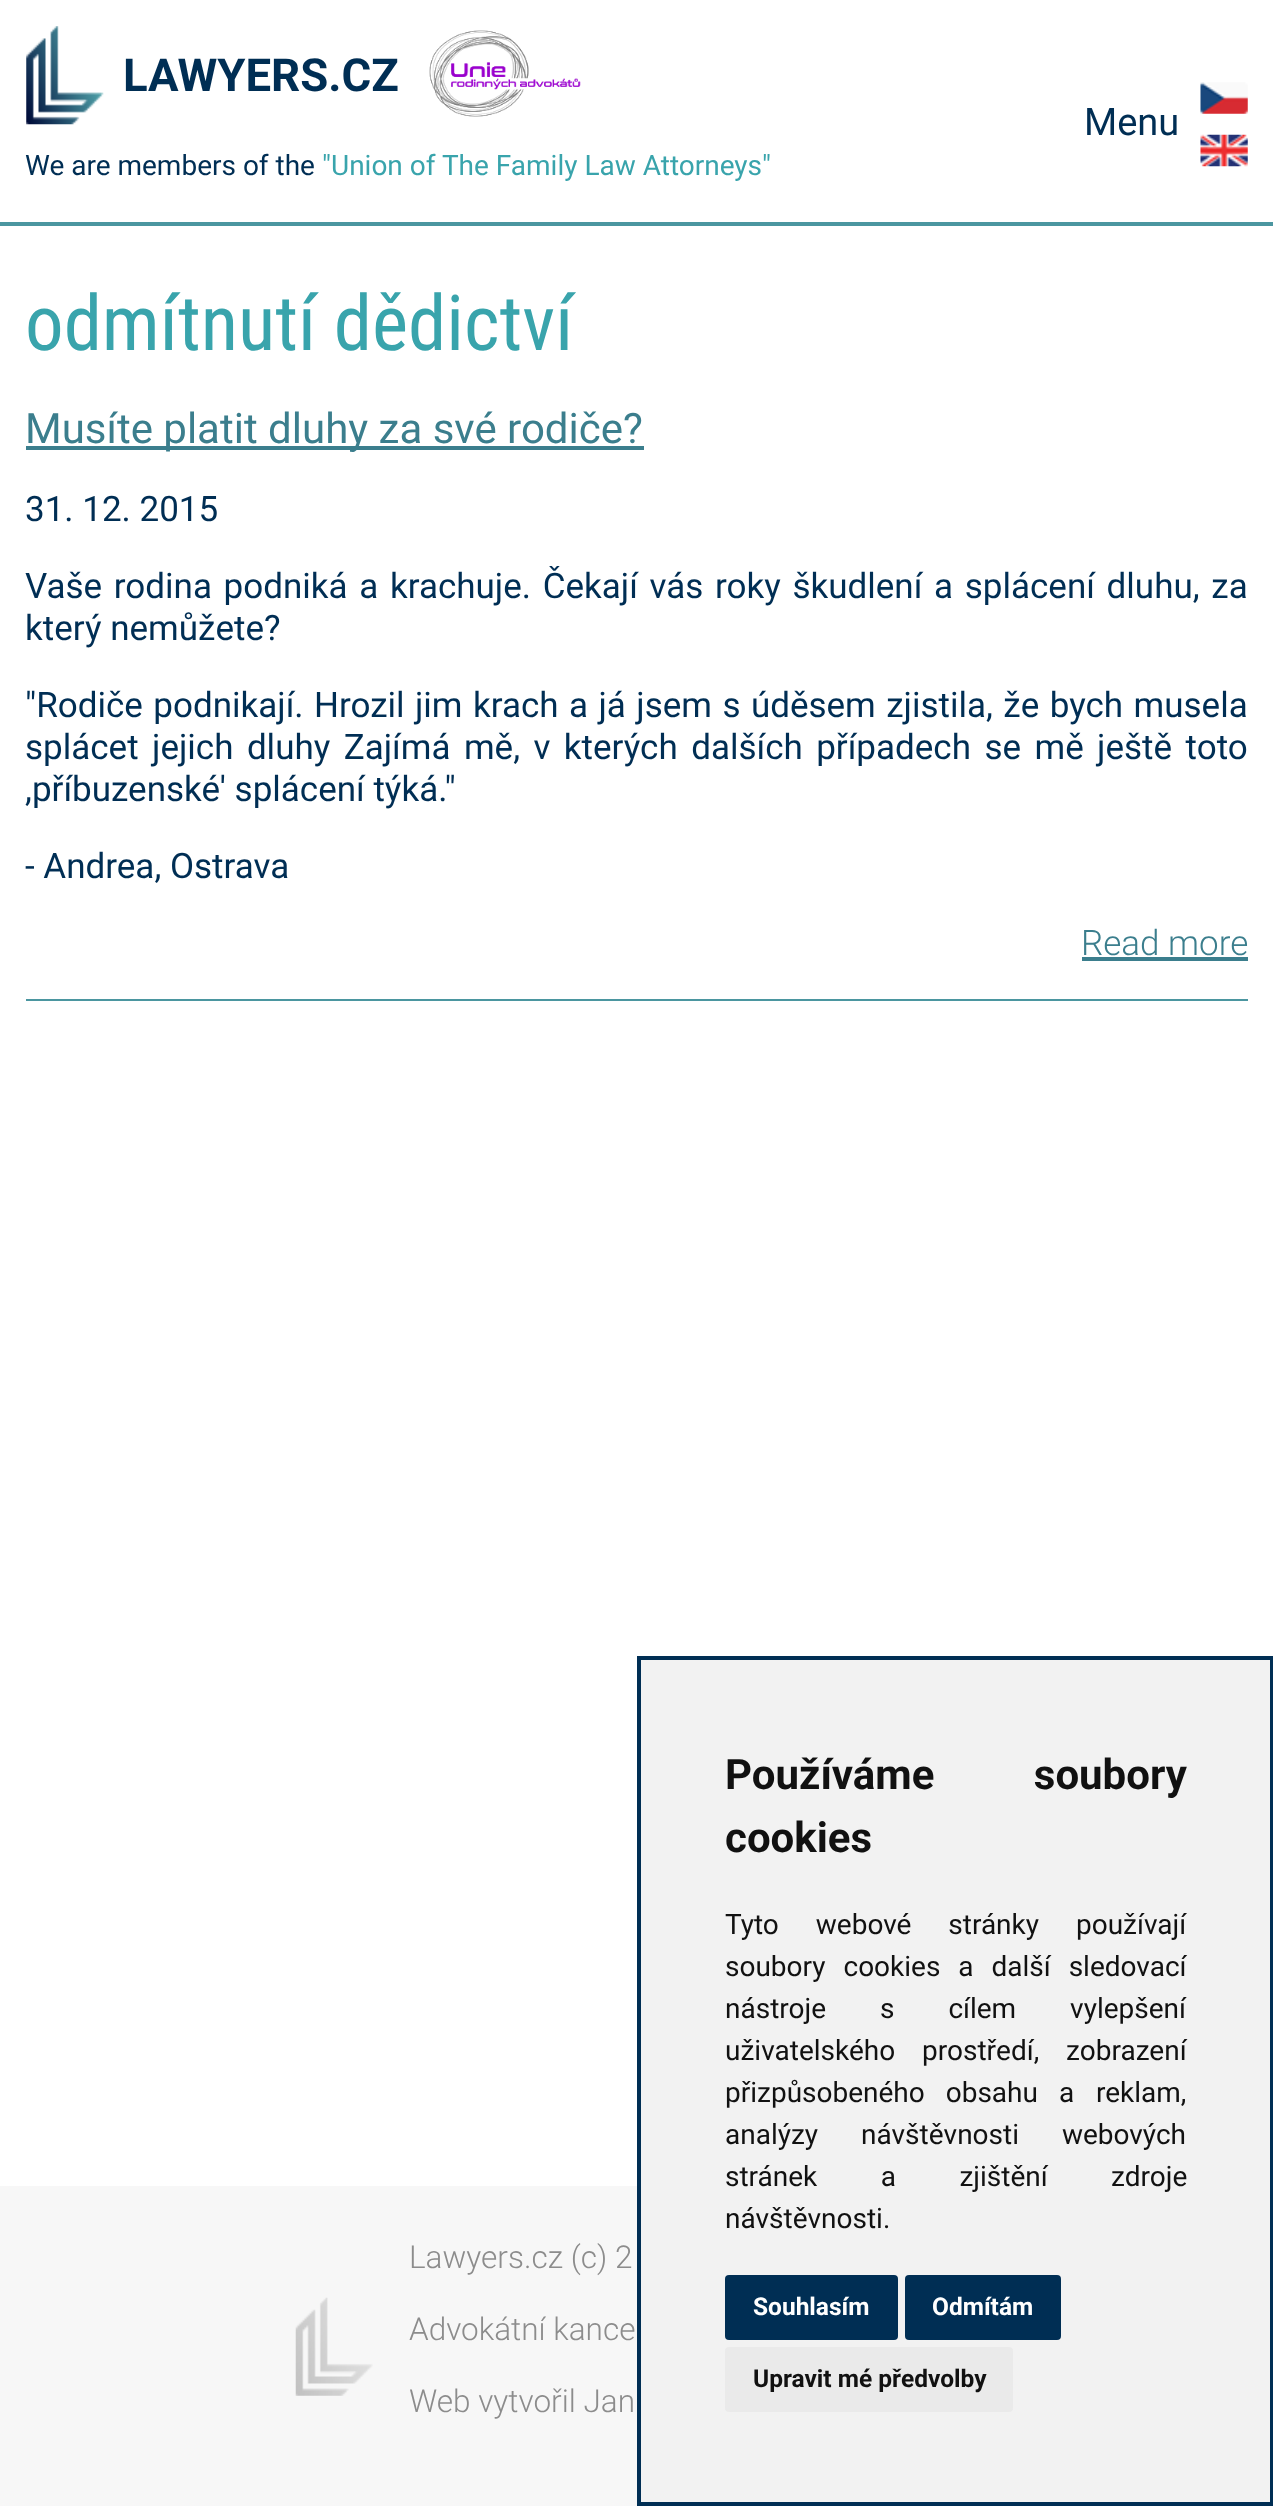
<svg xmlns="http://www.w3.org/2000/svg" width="1273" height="2506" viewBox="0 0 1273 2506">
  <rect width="100%" height="100%" fill="#ffffff"/>
  <rect x="0" y="222" width="1273" height="4" fill="#4b96a0"/>
  <image x="26" y="26" width="78" height="99" href="img1.png"/>
  <text x="123" y="91" font-family="Roboto" font-size="45.5" font-weight="bold" fill="#002e54">LAWYERS.CZ</text>
  <image x="429" y="30" width="152" height="87" href="img2.png"/>
  <text x="1084" y="135" font-family="Roboto" font-size="38" fill="#002e54">Menu</text>
  <image x="1200" y="82" width="48" height="32" href="img3.png"/>
  <image x="1200" y="134" width="48" height="33" href="img4.png"/>
  <text x="25" y="175" font-family="Roboto" font-size="28" fill="#002e54">We are members of the</text>
  <text x="322" y="175" font-family="Roboto" font-size="28" fill="#39a4ac">"Union of The Family Law Attorneys"</text>
  <text x="25" y="350" font-family="Roboto Condensed" font-size="77" fill="#39a4ac">odmítnutí dědictví</text>
  <rect x="26" y="999" width="1222" height="2" fill="#4b96a0"/>
  <rect x="26" y="446" width="618" height="4" fill="#3b7e8d"/>
  <text x="25" y="443" font-family="Roboto" font-size="42" fill="#3b7e8d">Musíte platit dluhy za své rodiče?</text>
  <text x="25" y="521" font-family="Roboto" font-size="35" fill="#002e54">31. 12. 2015</text>
  <text x="25" y="598" word-spacing="3" font-family="Roboto" font-size="35" fill="#002e54">Vaše rodina podniká a krachuje. Čekají vás roky škudlení a splácení dluhu, za</text>
  <text x="25" y="640" font-family="Roboto" font-size="35" fill="#002e54">který nemůžete?</text>
  <text x="25" y="717" word-spacing="1.75" font-family="Roboto" font-size="35" fill="#002e54">"Rodiče podnikají. Hrozil jim krach a já jsem s úděsem zjistila, že bych musela</text>
  <text x="25" y="759" word-spacing="4.75" font-family="Roboto" font-size="35" fill="#002e54">splácet jejich dluhy Zajímá mě, v kterých dalších případech se mě ještě toto</text>
  <text x="25" y="801" font-family="Roboto" font-size="35" fill="#002e54">,příbuzenské' splácení týká."</text>
  <text x="25" y="878" font-family="Roboto" font-size="35" fill="#002e54">- Andrea, Ostrava</text>
  <text x="1081" y="955" font-family="Roboto" font-size="35" font-weight="300" fill="#3b7e8d">Read more</text>
  <rect x="1082" y="957" width="166" height="4" fill="#3b7e8d"/>
  <rect x="0" y="2186" width="637" height="320" fill="#f7f7f7"/>
  <image x="295" y="2297" width="78" height="99" href="img5.png"/>
  <text x="409" y="2268" font-family="Roboto" font-size="31.5" font-weight="300" fill="#8c8c8c">Lawyers.cz (c) 2</text>
  <text x="409" y="2340" font-family="Roboto" font-size="31.5" font-weight="300" fill="#8c8c8c">Advokátní kance</text>
  <text x="409" y="2412" font-family="Roboto" font-size="31.5" font-weight="300" fill="#8c8c8c">Web vytvořil Jan</text>
  <rect x="639" y="1658" width="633" height="846" fill="#f2f2f2" stroke="#002e54" stroke-width="4"/>
  <text x="725" y="1789" word-spacing="89" font-family="Roboto" font-size="42" font-weight="bold" fill="#111111">Používáme soubory</text>
  <text x="725" y="1852" font-family="Roboto" font-size="42" font-weight="bold" fill="#111111">cookies</text>
  <text x="725" y="1934" word-spacing="30" font-family="Roboto" font-size="28" fill="#111111">Tyto webové stránky používají</text>
  <text x="725" y="1976" word-spacing="11" font-family="Roboto" font-size="28" fill="#111111">soubory cookies a další sledovací</text>
  <text x="725" y="2018" word-spacing="47" font-family="Roboto" font-size="28" fill="#111111">nástroje s cílem vylepšení</text>
  <text x="725" y="2060" word-spacing="20" font-family="Roboto" font-size="28" fill="#111111">uživatelského prostředí, zobrazení</text>
  <text x="725" y="2102" word-spacing="14" font-family="Roboto" font-size="28" fill="#111111">přizpůsobeného obsahu a</text>
  <text x="1096" y="2102" font-family="Roboto" font-size="28" fill="#111111">reklam,</text>
  <text x="725" y="2144" word-spacing="36" font-family="Roboto" font-size="28" fill="#111111">analýzy návštěvnosti webových</text>
  <text x="725" y="2186" word-spacing="56.5" font-family="Roboto" font-size="28" fill="#111111">stránek a zjištění zdroje</text>
  <text x="725" y="2228" font-family="Roboto" font-size="28" fill="#111111">návštěvnosti.</text>
  <rect x="725" y="2275" width="173" height="65" rx="4" fill="#002e54"/>
  <text x="753" y="2315" font-family="Roboto" font-size="24.5" font-weight="bold" fill="#ffffff">Souhlasím</text>
  <rect x="905" y="2275" width="156" height="65" rx="4" fill="#002e54"/>
  <text x="932" y="2315" font-family="Roboto" font-size="24.5" font-weight="bold" fill="#ffffff">Odmítám</text>
  <rect x="725" y="2347" width="288" height="65" rx="4" fill="#eaeaea"/>
  <text x="753" y="2387" font-family="Roboto" font-size="24.5" font-weight="bold" fill="#111111">Upravit mé předvolby</text>
</svg>
